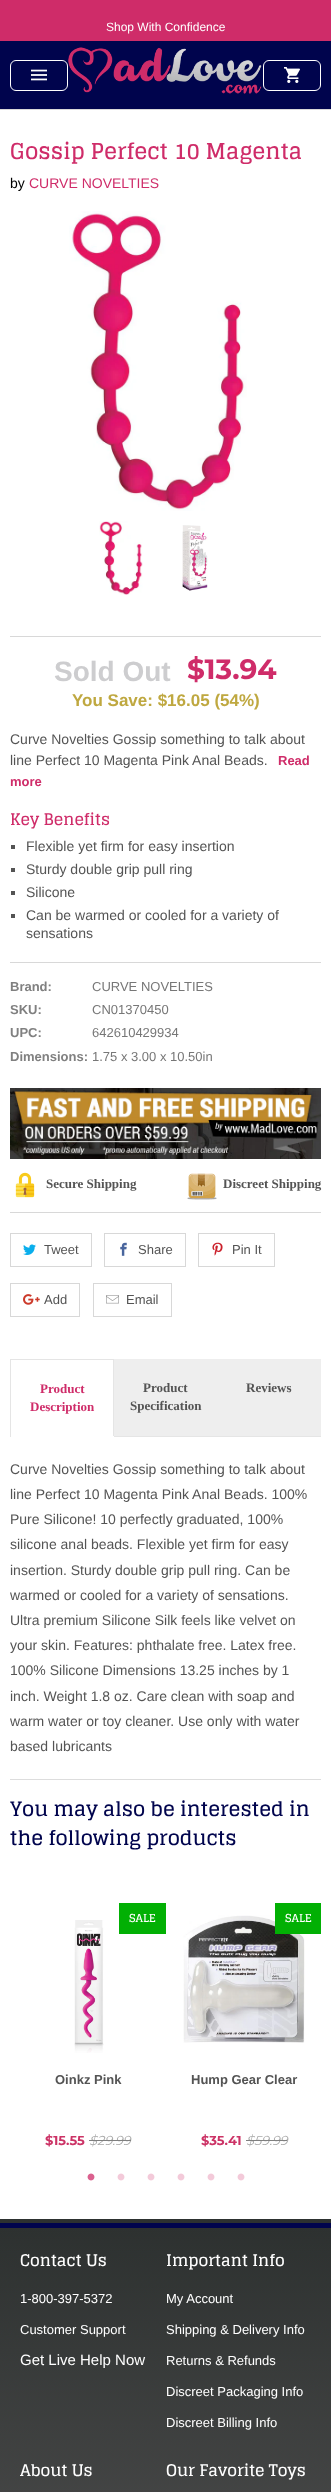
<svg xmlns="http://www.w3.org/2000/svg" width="331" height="2492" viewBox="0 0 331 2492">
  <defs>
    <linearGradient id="g1" gradientUnits="userSpaceOnUse" x1="165" y1="2228" x2="166" y2="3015"><stop offset="0" stop-color="#2d3130"/><stop offset="0.51" stop-color="#4e4e4e"/><stop offset="1" stop-color="#484848"/></linearGradient>
  </defs>
  <rect width="100%" height="100%" fill="#ffffff"/>
  <rect x="0" y="0" width="331" height="41" fill="#cf2c69"/>
  <text x="106" y="31" font-family="Liberation Sans" font-size="12" fill="#ffffff">Shop With Confidence</text>
  <rect x="0" y="41" width="331" height="68" fill="#00044d"/>
  <rect x="0" y="109" width="331" height="1" fill="#d8d8d8"/>
  <rect x="10.5" y="60.5" width="57" height="30" rx="5.5" fill="none" stroke="#ffffff"/>
  <image x="31" y="69" width="16" height="12" href="img1.png"/>
  <image x="68" y="47" width="194" height="47" href="img2.png"/>
  <rect x="263.5" y="60.5" width="57" height="30" rx="5.5" fill="none" stroke="#ffffff"/>
  <image x="284" y="67" width="16" height="16" href="img3.png"/>
  <text x="10" y="159" font-family="Glegoo" font-size="22" font-weight="bold" fill="#cf2c69">Gossip Perfect 10 Magenta</text>
  <text x="10" y="188" font-family="Liberation Sans" font-size="14" fill="#000000">by</text>
  <text x="29" y="188" font-family="Liberation Sans" font-size="14" fill="#cf2c69">CURVE NOVELTIES</text>
  <image x="69" y="211" width="178" height="300" href="img4.png"/>
  <image x="99" y="521" width="44" height="74" href="img5.png"/>
  <image x="182" y="525" width="26" height="66" href="img6.png"/>
  <rect x="10" y="636" width="311" height="1" fill="#d8d8d8"/>
  <text x="54" y="681" font-family="Liberation Sans" font-size="28" font-weight="bold" fill="#cdcdcf">Sold Out</text>
  <text x="187" y="679" font-family="Montserrat" font-size="28" font-weight="bold" fill="#cf2c69">$13.94</text>
  <text x="72" y="706" font-family="Liberation Sans" font-size="17" font-weight="bold" fill="#bfa840">You Save: $16.05 (54%)</text>
  <text x="10" y="744" font-family="Liberation Sans" font-size="14" fill="#545454">Curve Novelties Gossip something to talk about</text>
  <text x="10" y="765" font-family="Liberation Sans" font-size="14" fill="#545454">line Perfect 10 Magenta Pink Anal Beads.</text>
  <text x="278" y="765" font-family="Liberation Sans" font-size="13" font-weight="bold" fill="#cf2c69">Read</text>
  <text x="10" y="786" font-family="Liberation Sans" font-size="13" font-weight="bold" fill="#cf2c69">more</text>
  <text x="10" y="825" font-family="Glegoo" font-size="16" font-weight="bold" fill="#cf2c69">Key Benefits</text>
  <rect x="11" y="845" width="4" height="4" fill="#545454"/>
  <text x="26" y="851" font-family="Liberation Sans" font-size="14" fill="#545454">Flexible yet firm for easy insertion</text>
  <rect x="11" y="868" width="4" height="4" fill="#545454"/>
  <text x="26" y="874" font-family="Liberation Sans" font-size="14" fill="#545454">Sturdy double grip pull ring</text>
  <rect x="11" y="891" width="4" height="4" fill="#545454"/>
  <text x="26" y="897" font-family="Liberation Sans" font-size="14" fill="#545454">Silicone</text>
  <rect x="11" y="914" width="4" height="4" fill="#545454"/>
  <text x="26" y="920" font-family="Liberation Sans" font-size="14" fill="#545454">Can be warmed or cooled for a variety of</text>
  <text x="26" y="938" font-family="Liberation Sans" font-size="14" fill="#545454">sensations</text>
  <rect x="10" y="962" width="311" height="1" fill="#d8d8d8"/>
  <text x="10" y="991" font-family="Liberation Sans" font-size="13" font-weight="bold" fill="#808080">Brand:</text>
  <text x="92" y="991" font-family="Liberation Sans" font-size="13" fill="#777777">CURVE NOVELTIES</text>
  <text x="10" y="1014" font-family="Liberation Sans" font-size="13" font-weight="bold" fill="#808080">SKU:</text>
  <text x="92" y="1014" font-family="Liberation Sans" font-size="13" fill="#777777">CN01370450</text>
  <text x="10" y="1037" font-family="Liberation Sans" font-size="13" font-weight="bold" fill="#808080">UPC:</text>
  <text x="92" y="1037" font-family="Liberation Sans" font-size="13" fill="#777777">642610429934</text>
  <text x="10" y="1061" font-family="Liberation Sans" font-size="13" font-weight="bold" fill="#808080">Dimensions:</text>
  <text x="92" y="1061" font-family="Liberation Sans" font-size="13" fill="#777777">1.75 x 3.00 x 10.50in</text>
  <image x="10" y="1088" width="311" height="71" href="img7.png"/>
  <image x="15" y="1172" width="20" height="26" href="img8.png"/>
  <text x="46" y="1188" font-family="Liberation Serif" font-size="13" font-weight="bold" fill="#545454">Secure Shipping</text>
  <image x="187" y="1173" width="30" height="27" href="img9.png"/>
  <text x="223" y="1188" font-family="Liberation Serif" font-size="13" font-weight="bold" fill="#545454">Discreet Shipping</text>
  <rect x="10" y="1212" width="311" height="1" fill="#d8d8d8"/>
  <rect x="10.5" y="1233.5" width="81" height="33" fill="none" stroke="#d8d8d8"/>
  <image x="23" y="1244" width="13" height="11" href="img10.png"/>
  <text x="44" y="1254" font-family="Liberation Sans" font-size="13" fill="#545454">Tweet</text>
  <rect x="104.5" y="1233.5" width="81" height="33" fill="none" stroke="#d8d8d8"/>
  <image x="120" y="1242" width="7" height="14" href="img11.png"/>
  <text x="138" y="1254" font-family="Liberation Sans" font-size="13" fill="#545454">Share</text>
  <rect x="198.5" y="1233.5" width="76" height="33" fill="none" stroke="#d8d8d8"/>
  <image x="212" y="1242" width="11" height="14" href="img12.png"/>
  <text x="232" y="1254" font-family="Liberation Sans" font-size="13" fill="#545454">Pin It</text>
  <rect x="10.5" y="1283.5" width="69" height="33" fill="none" stroke="#d8d8d8"/>
  <image x="23" y="1294" width="17" height="11" href="img13.png"/>
  <text x="44" y="1304" font-family="Liberation Sans" font-size="13" fill="#545454">Add</text>
  <rect x="93.5" y="1283.5" width="78" height="33" fill="none" stroke="#d8d8d8"/>
  <image x="106" y="1295" width="13" height="9" href="img14.png"/>
  <text x="126" y="1304" font-family="Liberation Sans" font-size="13" fill="#545454">Email</text>
  <rect x="114" y="1436" width="207" height="1" fill="#e5e5e5"/>
  <rect x="10" y="1359" width="104" height="1" fill="#e5e5e5"/>
  <rect x="113" y="1359" width="1" height="78" fill="#e5e5e5"/>
  <rect x="113" y="1436" width="1" height="1" fill="#ffffff"/>
  <rect x="10" y="1359" width="1" height="78" fill="#e5e5e5"/>
  <text x="40" y="1393" font-family="Liberation Serif" font-size="13" font-weight="bold" fill="#cf2c69">Product</text>
  <text x="30" y="1411" font-family="Liberation Serif" font-size="13" font-weight="bold" fill="#cf2c69">Description</text>
  <rect x="114" y="1359" width="207" height="77" fill="#eeeeee"/>
  <text x="143" y="1392" font-family="Liberation Serif" font-size="13" font-weight="bold" fill="#545454">Product</text>
  <text x="130" y="1410" font-family="Liberation Serif" font-size="13" font-weight="bold" fill="#545454">Specification</text>
  <text x="246" y="1392" font-family="Liberation Serif" font-size="13" font-weight="bold" fill="#545454">Reviews</text>
  <text x="10" y="1474" font-family="Liberation Sans" font-size="14" fill="#545454">Curve Novelties Gossip something to talk about</text>
  <text x="10" y="1499" font-family="Liberation Sans" font-size="14" fill="#545454">line Perfect 10 Magenta Pink Anal Beads. 100%</text>
  <text x="10" y="1524" font-family="Liberation Sans" font-size="14" fill="#545454">Pure Silicone! 10 perfectly graduated, 100%</text>
  <text x="10" y="1549" font-family="Liberation Sans" font-size="14" fill="#545454">silicone anal beads. Flexible yet firm for easy</text>
  <text x="10" y="1575" font-family="Liberation Sans" font-size="14" fill="#545454">insertion. Sturdy double grip pull ring. Can be</text>
  <text x="10" y="1600" font-family="Liberation Sans" font-size="14" fill="#545454">warmed or cooled for a variety of sensations.</text>
  <text x="10" y="1625" font-family="Liberation Sans" font-size="14" fill="#545454">Ultra premium Silicone Silk feels like velvet on</text>
  <text x="10" y="1650" font-family="Liberation Sans" font-size="14" fill="#545454">your skin. Features: phthalate free. Latex free.</text>
  <text x="10" y="1675" font-family="Liberation Sans" font-size="14" fill="#545454">100% Silicone Dimensions 13.25 inches by 1</text>
  <text x="10" y="1701" font-family="Liberation Sans" font-size="14" fill="#545454">inch. Weight 1.8 oz. Care clean with soap and</text>
  <text x="10" y="1726" font-family="Liberation Sans" font-size="14" fill="#545454">warm water or toy cleaner. Use only with water</text>
  <text x="10" y="1751" font-family="Liberation Sans" font-size="14" fill="#545454">based lubricants</text>
  <rect x="10" y="1779" width="311" height="1" fill="#dddddd"/>
  <text x="10" y="1816" font-family="Glegoo" font-size="20" font-weight="bold" fill="#00044d">You may also be interested in</text>
  <text x="10" y="1845" font-family="Glegoo" font-size="20" font-weight="bold" fill="#00044d">the following products</text>
  <rect x="119" y="1903" width="47" height="31" fill="#02b004"/>
  <text x="129" y="1922" font-family="Glegoo" font-size="11" font-weight="bold" fill="#ffffff">SALE</text>
  <image x="74" y="1920" width="30" height="133" href="img15.png"/>
  <text x="55" y="2084" font-family="Liberation Sans" font-size="13" font-weight="bold" fill="#545454">Oinkz Pink</text>
  <text x="45" y="2145" font-family="Montserrat" font-size="13" font-weight="bold" fill="#cc3366">$15.55</text>
  <text x="89" y="2145" font-family="Montserrat" font-size="13" font-style="italic" fill="#aaaaaa">$29.99</text>
  <rect x="89" y="2140" width="42" height="1" fill="#808080"/>
  <image x="183" y="1915" width="122" height="128" href="img16.png"/>
  <rect x="275" y="1903" width="46" height="31" fill="#02b004"/>
  <text x="285" y="1922" font-family="Glegoo" font-size="11" font-weight="bold" fill="#ffffff">SALE</text>
  <text x="191" y="2084" font-family="Liberation Sans" font-size="13" font-weight="bold" fill="#545454">Hump Gear Clear</text>
  <text x="201" y="2145" font-family="Montserrat" font-size="13" font-weight="bold" fill="#cc3366">$35.41</text>
  <text x="246" y="2145" font-family="Montserrat" font-size="13" font-style="italic" fill="#aaaaaa">$59.99</text>
  <rect x="246" y="2140" width="41" height="1" fill="#808080"/>
  <image x="87" y="2173" width="8" height="8" href="img17.png"/>
  <image x="117" y="2173" width="8" height="8" href="img18.png"/>
  <image x="147" y="2173" width="8" height="8" href="img18.png"/>
  <image x="177" y="2173" width="8" height="8" href="img18.png"/>
  <image x="207" y="2173" width="8" height="8" href="img18.png"/>
  <image x="237" y="2173" width="8" height="8" href="img18.png"/>
  <rect x="0" y="2228" width="331" height="264" fill="url(#g1)"/>
  <rect x="0" y="2223" width="331" height="5" fill="#00044d"/>
  <rect x="0" y="2219" width="331" height="4" fill="#2d3130"/>
  <text x="20" y="2266" font-family="Glegoo" font-size="16" font-weight="bold" fill="#ffffff">Contact Us</text>
  <text x="20" y="2303" font-family="Liberation Sans" font-size="13" fill="#ffffff">1-800-397-5372</text>
  <text x="20" y="2334" font-family="Liberation Sans" font-size="13" fill="#ffffff">Customer Support</text>
  <text x="20" y="2365" font-family="Liberation Sans" font-size="15" fill="#ffffff">Get Live Help Now</text>
  <text x="166" y="2266" font-family="Glegoo" font-size="16" font-weight="bold" fill="#ffffff">Important Info</text>
  <text x="166" y="2303" font-family="Liberation Sans" font-size="13" fill="#ffffff">My Account</text>
  <text x="166" y="2334" font-family="Liberation Sans" font-size="13" fill="#ffffff">Shipping &amp; Delivery Info</text>
  <text x="166" y="2365" font-family="Liberation Sans" font-size="13" fill="#ffffff">Returns &amp; Refunds</text>
  <text x="166" y="2396" font-family="Liberation Sans" font-size="13" fill="#ffffff">Discreet Packaging Info</text>
  <text x="166" y="2427" font-family="Liberation Sans" font-size="13" fill="#ffffff">Discreet Billing Info</text>
  <text x="20" y="2476" font-family="Glegoo" font-size="16" font-weight="bold" fill="#ffffff">About Us</text>
  <text x="166" y="2476" font-family="Glegoo" font-size="16" font-weight="bold" fill="#ffffff">Our Favorite Toys</text>
</svg>
